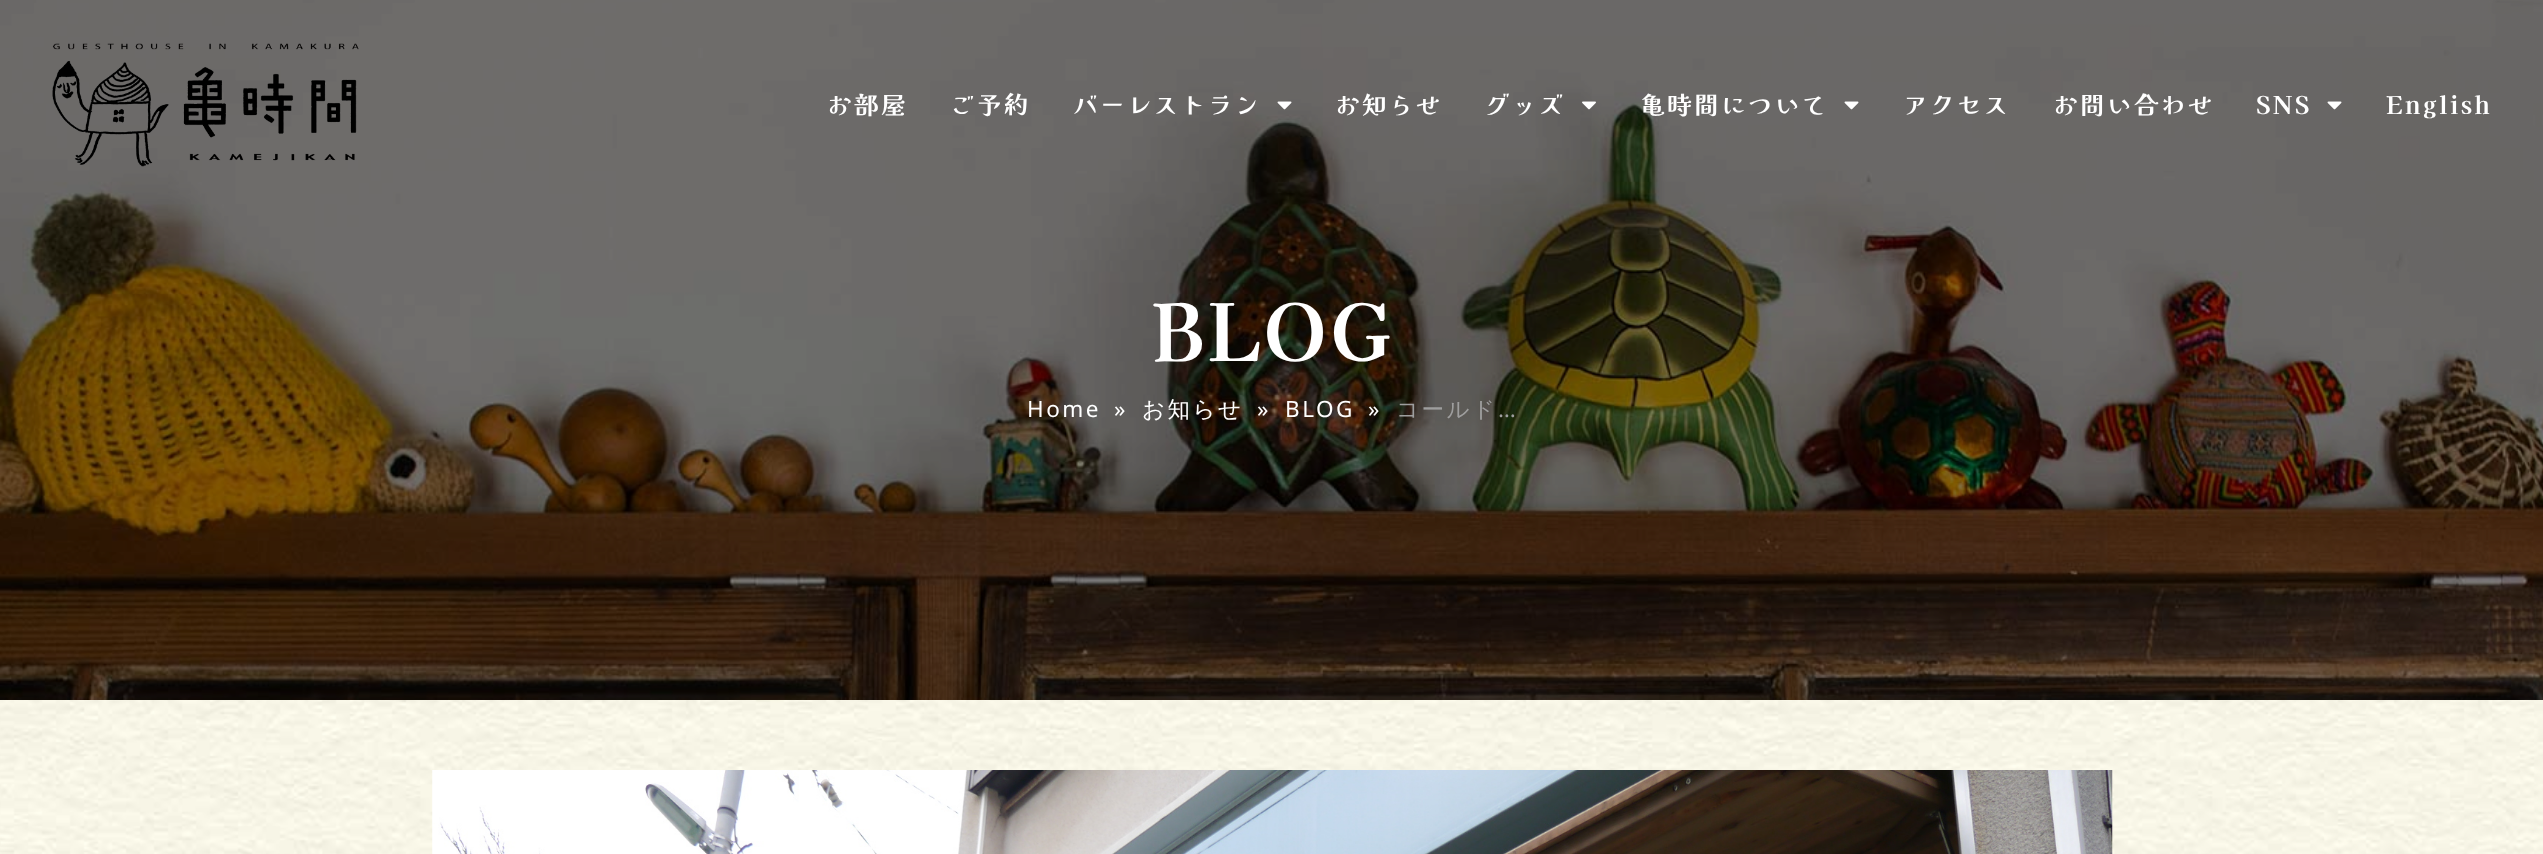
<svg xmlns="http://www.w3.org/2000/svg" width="2543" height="854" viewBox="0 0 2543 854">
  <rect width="100%" height="100%" fill="#ffffff"/>
  <image x="0" y="700" width="2543" height="154" href="img1.png"/>
  <image x="0" y="0" width="2543" height="700" href="img7.png"/>
  <image x="52" y="43" width="307" height="124" href="img2.png"/>
  <text x="827" y="114" font-family="Kaisei Opti" font-size="24.5" font-weight="bold" letter-spacing="2.5" fill="#ffffff">お部屋</text>
  <text x="950" y="114" font-family="Kaisei Opti" font-size="24.5" font-weight="bold" letter-spacing="2.5" fill="#ffffff">ご予約</text>
  <text x="1073" y="114" font-family="Kaisei Opti" font-size="24.5" font-weight="bold" letter-spacing="2.5" fill="#ffffff">バーレストラン</text>
  <image x="1277" y="101" width="15" height="9" href="img3.png"/>
  <text x="1335" y="114" font-family="Kaisei Opti" font-size="24.5" font-weight="bold" letter-spacing="2.5" fill="#ffffff">お知らせ</text>
  <text x="1485" y="114" font-family="Kaisei Opti" font-size="24.5" font-weight="bold" letter-spacing="2.5" fill="#ffffff">グッズ</text>
  <image x="1582" y="101" width="14" height="9" href="img4.png"/>
  <text x="1640" y="114" font-family="Kaisei Opti" font-size="24.5" font-weight="bold" letter-spacing="2.5" fill="#ffffff">亀時間について</text>
  <image x="1844" y="101" width="15" height="9" href="img5.png"/>
  <text x="1903" y="114" font-family="Kaisei Opti" font-size="24.5" font-weight="bold" letter-spacing="2.5" fill="#ffffff">アクセス</text>
  <text x="2053" y="114" font-family="Kaisei Opti" font-size="24.5" font-weight="bold" letter-spacing="2.5" fill="#ffffff">お問い合わせ</text>
  <text x="2256" y="114" font-family="Kaisei Opti" font-size="24.5" font-weight="bold" letter-spacing="2.5" fill="#ffffff">SNS</text>
  <image x="2327" y="101" width="15" height="9" href="img6.png"/>
  <text x="2386" y="114" font-family="Kaisei Opti" font-size="24.5" font-weight="bold" letter-spacing="2.5" fill="#ffffff">English</text>
  <text x="1151" y="361" font-family="Kaisei Opti" font-size="79" font-weight="bold" letter-spacing="2" fill="#ffffff">BLOG</text>
  <text x="1027" y="417" font-family="Noto Sans" font-size="22.5" letter-spacing="2.5" fill="#ffffff">Home</text>
  <text x="1114" y="417" font-family="Noto Sans" font-size="22.5" letter-spacing="2.5" fill="#ffffff">»</text>
  <text x="1142" y="417" font-family="WenQuanYi Zen Hei" font-size="22.5" font-weight="500" letter-spacing="2.5" fill="#ffffff">お知らせ</text>
  <text x="1257" y="417" font-family="Noto Sans" font-size="22.5" letter-spacing="2.5" fill="#ffffff">»</text>
  <text x="1285" y="417" font-family="Noto Sans" font-size="22.5" letter-spacing="2.5" fill="#ffffff">BLOG</text>
  <text x="1368" y="417" font-family="Noto Sans" font-size="22.5" letter-spacing="2.5" fill="#ffffff">»</text>
  <text x="1396" y="417" font-family="WenQuanYi Zen Hei" font-size="22.5" font-weight="500" letter-spacing="2.5" fill="#9e9e9e">コールド</text>
  <text x="1498" y="417" font-family="Noto Sans" font-size="22.5" letter-spacing="2.5" fill="#9e9e9e">…</text>
  <image x="432" y="770" width="1681" height="84" href="img8.png"/>
</svg>
